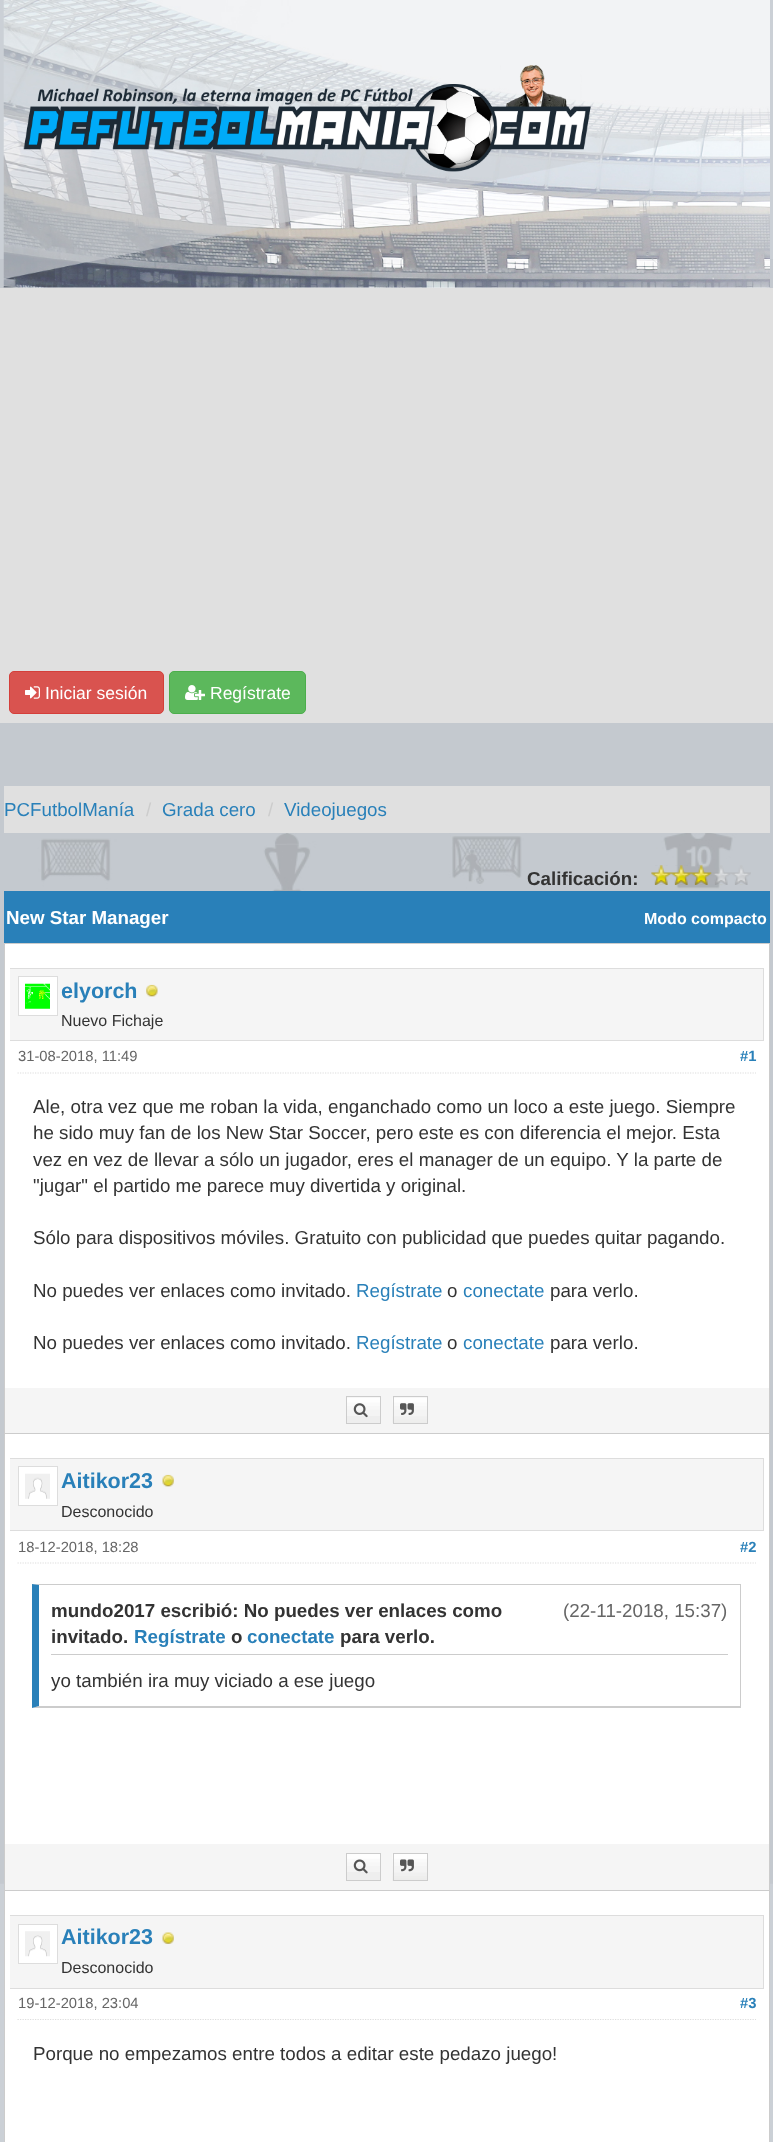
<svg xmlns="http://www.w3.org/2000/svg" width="773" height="2142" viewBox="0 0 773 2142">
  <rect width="100%" height="100%" fill="#cbd0d6"/>
  <image x="0" y="259" width="773" height="1625" href="img1.png"/>
  <rect x="4" y="287" width="766" height="1" fill="#eceef0"/>
  <image x="3" y="0" width="767" height="288" href="img2.png"/>
  <image x="23" y="65" width="568" height="107" href="img3.png"/>
  <rect x="0" y="288" width="773" height="435" fill="#e0e0e0"/>
  <rect x="9.5" y="671.5" width="154" height="42" rx="4.5" fill="#d9534f" stroke="#d43f3a"/>
  <image x="25" y="686" width="15" height="13" href="img4.png"/>
  <text x="45" y="699" font-family="Liberation Sans" font-size="17.5" fill="#ffffff">Iniciar sesión</text>
  <rect x="169.5" y="671.5" width="136" height="42" rx="4.5" fill="#5cb85c" stroke="#4cae4c"/>
  <image x="185" y="685" width="20" height="15" href="img5.png"/>
  <text x="210" y="699" font-family="Liberation Sans" font-size="17.5" fill="#ffffff">Regístrate</text>
  <rect x="4" y="786" width="766" height="47" fill="#e0e0e0"/>
  <text x="4" y="816" font-family="Liberation Sans" font-size="18.75" fill="#2980b9">PCFutbolManía</text>
  <text x="146" y="816" font-family="Liberation Sans" font-size="18.75" fill="#cccccc">/</text>
  <text x="162" y="816" font-family="Liberation Sans" font-size="18.75" fill="#2980b9">Grada cero</text>
  <text x="268" y="816" font-family="Liberation Sans" font-size="18.75" fill="#cccccc">/</text>
  <text x="284" y="816" font-family="Liberation Sans" font-size="18.75" fill="#2980b9">Videojuegos</text>
  <text x="527" y="885" font-family="Liberation Sans" font-size="18.75" font-weight="bold" fill="#333333">Calificación:</text>
  <image x="651" y="865" width="100" height="20" href="img6.png"/>
  <image x="651" y="865" width="61" height="20" href="img7.png"/>
  <rect x="4" y="891" width="766" height="52" fill="#2980b9"/>
  <text x="6" y="924" font-family="Liberation Sans" font-size="18.75" font-weight="bold" fill="#ffffff">New Star Manager</text>
  <text x="644" y="924" font-family="Liberation Sans" font-size="16" font-weight="bold" fill="#ffffff">Modo compacto</text>
  <rect x="4.5" y="943.5" width="765" height="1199" fill="none" stroke="#cccccc"/>
  <rect x="5" y="944" width="764" height="444" fill="#ffffff"/>
  <rect x="10" y="969" width="753" height="71" fill="#f5f5f5"/>
  <rect x="10" y="968" width="754" height="1" fill="#dddddd"/>
  <rect x="763" y="968" width="1" height="73" fill="#dddddd"/>
  <rect x="10" y="1040" width="754" height="1" fill="#dddddd"/>
  <rect x="18.5" y="976.5" width="39" height="39" fill="#ffffff" stroke="#dddddd"/>
  <image x="25" y="983" width="25" height="26" href="img8.png"/>
  <text x="61" y="998" font-family="Liberation Sans" font-size="21.5" font-weight="bold" fill="#2980b9">elyorch</text>
  <image x="146" y="984" width="12" height="13" href="img9.png"/>
  <text x="61" y="1026" font-family="Liberation Sans" font-size="16" fill="#333333">Nuevo Fichaje</text>
  <path d="M17.5 1073H756" fill="none" stroke="#dddddd" stroke-width="1.2" stroke-dasharray="1.25 1.25"/>
  <text x="18" y="1061" font-family="Liberation Sans" font-size="14.75" fill="#666666">31-08-2018, 11:49</text>
  <text x="740" y="1061" font-family="Liberation Sans" font-size="14.75" font-weight="bold" fill="#2980b9">#1</text>
  <text x="33" y="1113" font-family="Liberation Sans" font-size="18.75" fill="#333333">Ale, otra vez que me roban la vida, enganchado como un loco a este juego. Siempre</text>
  <text x="33" y="1139" font-family="Liberation Sans" font-size="18.75" fill="#333333">he sido muy fan de los New Star Soccer, pero este es con diferencia el mejor. Esta</text>
  <text x="33" y="1166" font-family="Liberation Sans" font-size="18.75" fill="#333333">vez en vez de llevar a sólo un jugador, eres el manager de un equipo. Y la parte de</text>
  <text x="33" y="1192" font-family="Liberation Sans" font-size="18.75" fill="#333333">"jugar" el partido me parece muy divertida y original.</text>
  <text x="33" y="1244" font-family="Liberation Sans" font-size="18.75" fill="#333333">Sólo para dispositivos móviles. Gratuito con publicidad que puedes quitar pagando.</text>
  <text x="33" y="1297" font-family="Liberation Sans" font-size="18.75" fill="#333333">No puedes ver enlaces como invitado.</text>
  <text x="356" y="1297" font-family="Liberation Sans" font-size="18.75" fill="#2980b9">Regístrate</text>
  <text x="447" y="1297" font-family="Liberation Sans" font-size="18.75" fill="#333333">o</text>
  <text x="463" y="1297" font-family="Liberation Sans" font-size="18.75" fill="#2980b9">conectate</text>
  <text x="550" y="1297" font-family="Liberation Sans" font-size="18.75" fill="#333333">para verlo.</text>
  <text x="33" y="1349" font-family="Liberation Sans" font-size="18.75" fill="#333333">No puedes ver enlaces como invitado.</text>
  <text x="356" y="1349" font-family="Liberation Sans" font-size="18.75" fill="#2980b9">Regístrate</text>
  <text x="447" y="1349" font-family="Liberation Sans" font-size="18.75" fill="#333333">o</text>
  <text x="463" y="1349" font-family="Liberation Sans" font-size="18.75" fill="#2980b9">conectate</text>
  <text x="550" y="1349" font-family="Liberation Sans" font-size="18.75" fill="#333333">para verlo.</text>
  <rect x="5" y="1388" width="764" height="45" fill="#f5f5f5"/>
  <rect x="5" y="1433" width="764" height="1" fill="#cccccc"/>
  <rect x="347" y="1397" width="33" height="26" fill="#eeeeee"/>
  <image x="347" y="1397" width="33" height="19" href="img10.png"/>
  <rect x="346.5" y="1396.5" width="34" height="27" fill="none" stroke="#cccccc"/>
  <image x="353" y="1403" width="15" height="15" href="img11.png"/>
  <rect x="394" y="1397" width="33" height="1" fill="#eeeeee"/>
  <image x="392" y="1397" width="35" height="26" href="img12.png"/>
  <rect x="393.5" y="1396.5" width="34" height="27" fill="none" stroke="#cccccc"/>
  <image x="400" y="1403" width="14" height="12" href="img13.png"/>
  <rect x="5" y="1434" width="764" height="410" fill="#ffffff"/>
  <rect x="10" y="1459" width="753" height="71" fill="#f5f5f5"/>
  <rect x="10" y="1458" width="754" height="1" fill="#dddddd"/>
  <rect x="763" y="1458" width="1" height="73" fill="#dddddd"/>
  <rect x="10" y="1530" width="754" height="1" fill="#dddddd"/>
  <rect x="18.5" y="1466.5" width="39" height="39" fill="#ffffff" stroke="#dddddd"/>
  <image x="25" y="1473" width="25" height="26" href="img14.png"/>
  <text x="61" y="1488" font-family="Liberation Sans" font-size="21.5" font-weight="bold" fill="#2980b9">Aitikor23</text>
  <image x="162" y="1474" width="12" height="13" href="img15.png"/>
  <text x="61" y="1517" font-family="Liberation Sans" font-size="16" fill="#333333">Desconocido</text>
  <path d="M17.5 1563H756" fill="none" stroke="#dddddd" stroke-width="1.2" stroke-dasharray="1.25 1.25"/>
  <text x="18" y="1552" font-family="Liberation Sans" font-size="14.75" fill="#666666">18-12-2018, 18:28</text>
  <text x="740" y="1552" font-family="Liberation Sans" font-size="14.75" font-weight="bold" fill="#2980b9">#2</text>
  <path d="M32 1584H741L740 1585H39Z" fill="#cccccc"/>
  <rect x="740" y="1584" width="1" height="124" fill="#cccccc"/>
  <path d="M741 1708H32L39 1706H740Z" fill="#cccccc"/>
  <path d="M32 1708V1584L39 1585V1706Z" fill="#2980b9"/>
  <rect x="51" y="1654" width="677" height="1" fill="#cccccc"/>
  <text x="51" y="1617" font-family="Liberation Sans" font-size="18.75" font-weight="bold" fill="#333333">mundo2017 escribió: No puedes ver enlaces como</text>
  <text x="563" y="1617" font-family="Liberation Sans" font-size="18.75" fill="#666666">(22-11-2018, 15:37)</text>
  <text x="51" y="1643" font-family="Liberation Sans" font-size="18.75" font-weight="bold" fill="#333333">invitado.</text>
  <text x="134" y="1643" font-family="Liberation Sans" font-size="18.75" font-weight="bold" fill="#2980b9">Regístrate</text>
  <text x="231" y="1643" font-family="Liberation Sans" font-size="18.75" font-weight="bold" fill="#333333">o</text>
  <text x="247" y="1643" font-family="Liberation Sans" font-size="18.75" font-weight="bold" fill="#2980b9">conectate</text>
  <text x="340" y="1643" font-family="Liberation Sans" font-size="18.75" font-weight="bold" fill="#333333">para verlo.</text>
  <text x="51" y="1687" font-family="Liberation Sans" font-size="18.75" fill="#333333">yo también ira muy viciado a ese juego</text>
  <rect x="5" y="1844" width="764" height="46" fill="#f5f5f5"/>
  <rect x="5" y="1890" width="764" height="1" fill="#cccccc"/>
  <rect x="347" y="1872" width="33" height="8" fill="#eeeeee"/>
  <image x="347" y="1854" width="33" height="18" href="img16.png"/>
  <rect x="346.5" y="1853.5" width="34" height="27" fill="none" stroke="#cccccc"/>
  <image x="353" y="1859" width="15" height="15" href="img17.png"/>
  <image x="392" y="1853" width="35" height="28" href="img18.png"/>
  <rect x="393.5" y="1853.5" width="34" height="27" fill="none" stroke="#cccccc"/>
  <image x="400" y="1859" width="14" height="13" href="img19.png"/>
  <rect x="5" y="1891" width="764" height="251" fill="#ffffff"/>
  <rect x="10" y="1916" width="753" height="72" fill="#f5f5f5"/>
  <rect x="10" y="1915" width="754" height="1" fill="#dddddd"/>
  <rect x="763" y="1915" width="1" height="74" fill="#dddddd"/>
  <rect x="10" y="1988" width="754" height="1" fill="#dddddd"/>
  <rect x="18.5" y="1924.5" width="39" height="39" fill="#ffffff" stroke="#dddddd"/>
  <image x="25" y="1931" width="25" height="26" href="img20.png"/>
  <text x="61" y="1944" font-family="Liberation Sans" font-size="21.5" font-weight="bold" fill="#2980b9">Aitikor23</text>
  <image x="162" y="1932" width="12" height="12" href="img21.png"/>
  <text x="61" y="1973" font-family="Liberation Sans" font-size="16" fill="#333333">Desconocido</text>
  <path d="M17.5 2019.5H756" fill="none" stroke="#dddddd" stroke-width="1.2" stroke-dasharray="1.25 1.25"/>
  <text x="18" y="2008" font-family="Liberation Sans" font-size="14.75" fill="#666666">19-12-2018, 23:04</text>
  <text x="740" y="2008" font-family="Liberation Sans" font-size="14.75" font-weight="bold" fill="#2980b9">#3</text>
  <text x="33" y="2060" font-family="Liberation Sans" font-size="18.75" fill="#333333">Porque no empezamos entre todos a editar este pedazo juego!</text>
</svg>
